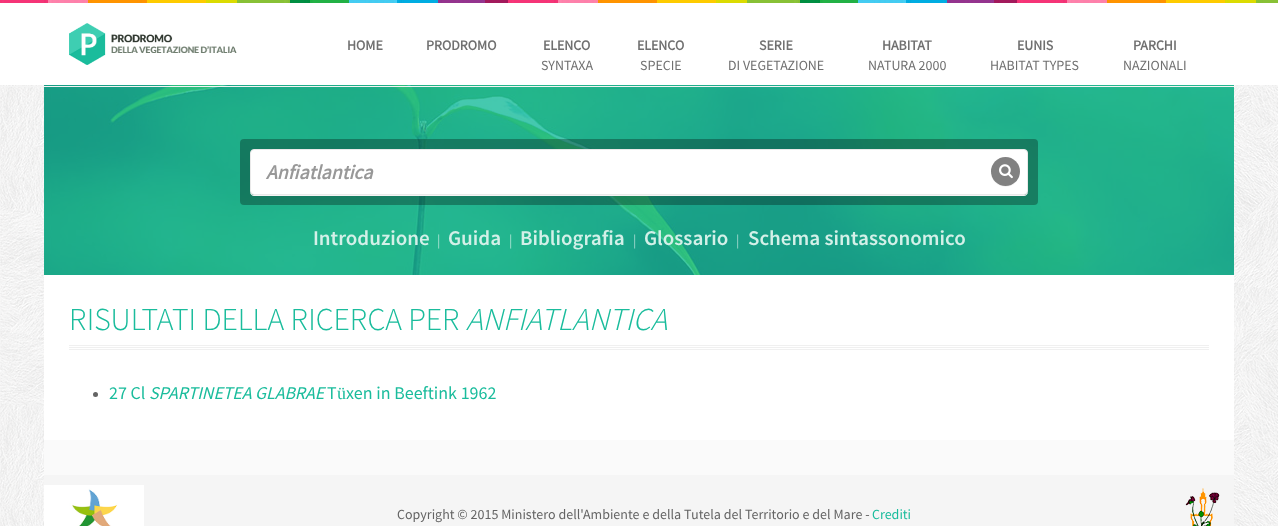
<svg xmlns="http://www.w3.org/2000/svg" width="1278" height="526" viewBox="0 0 1278 526">
  <rect width="100%" height="100%" fill="#ffffff"/>
  <image x="0" y="85" width="1278" height="441" href="img1.png"/>
  <rect x="44" y="275" width="1190" height="165" fill="#ffffff"/>
  <image x="0" y="0" width="1278" height="3" href="img2.png"/>
  <image x="69" y="23" width="168" height="42" href="img3.png"/>
  <text x="347" y="50" font-family="Source Sans Pro" font-size="14" font-weight="bold" fill="#707070">HOME</text>
  <text x="426" y="50" font-family="Source Sans Pro" font-size="14" font-weight="bold" fill="#707070">PRODROMO</text>
  <text x="543" y="50" font-family="Source Sans Pro" font-size="14" font-weight="bold" fill="#707070">ELENCO</text>
  <text x="541" y="70" font-family="Source Sans Pro" font-size="14" fill="#707070">SYNTAXA</text>
  <text x="637" y="50" font-family="Source Sans Pro" font-size="14" font-weight="bold" fill="#707070">ELENCO</text>
  <text x="640" y="70" font-family="Source Sans Pro" font-size="14" fill="#707070">SPECIE</text>
  <text x="759" y="50" font-family="Source Sans Pro" font-size="14" font-weight="bold" fill="#707070">SERIE</text>
  <text x="728" y="70" font-family="Source Sans Pro" font-size="14" fill="#707070">DI VEGETAZIONE</text>
  <text x="882" y="50" font-family="Source Sans Pro" font-size="14" font-weight="bold" fill="#707070">HABITAT</text>
  <text x="868" y="70" font-family="Source Sans Pro" font-size="14" fill="#707070">NATURA 2000</text>
  <text x="1017" y="50" font-family="Source Sans Pro" font-size="14" font-weight="bold" fill="#707070">EUNIS</text>
  <text x="990" y="70" font-family="Source Sans Pro" font-size="14" fill="#707070">HABITAT TYPES</text>
  <text x="1133" y="50" font-family="Source Sans Pro" font-size="14" font-weight="bold" fill="#707070">PARCHI</text>
  <text x="1123" y="70" font-family="Source Sans Pro" font-size="14" fill="#707070">NAZIONALI</text>
  <image x="44" y="85" width="1190" height="190" href="img4.png"/>
  <rect x="0" y="86" width="1278" height="1" fill="#f4f4f4"/>
  <rect x="240" y="139" width="798" height="66" rx="4" fill="#000000" fill-opacity="0.3"/>
  <path d="M250 191V192C250 194 252 196 254 196H1024C1026 196 1028 194 1028 192V191C1028 193 1026 195 1024 195H254C252 195 250 193 250 191Z" fill="#f4f4f4"/>
  <rect x="250.5" y="149.5" width="777" height="45" rx="3.5" fill="#ffffff" stroke="#e9e9e9"/>
  <text x="266" y="179" font-family="Source Sans Pro" font-size="20" font-weight="bold" font-style="italic" fill="#989898">Anfiatlantica</text>
  <path d="M991 172C990.5 186.5 1009.5 192.5 1017.5 180.5C1019 178 1020 175 1020 172C1019.5 190.5 991.5 190.5 991 172Z" fill="#f4f4f4"/>
  <circle cx="1005.5" cy="171.5" r="14.5" fill="#818181"/>
  <image x="999" y="164" width="14" height="15" href="img5.png"/>
  <text x="313" y="245" font-family="Source Sans Pro" font-size="21" font-weight="600" fill="#d3f0e8">Introduzione</text>
  <text x="437" y="245" font-family="Source Sans Pro" font-size="14" fill="#a7e2d2">|</text>
  <text x="448" y="245" font-family="Source Sans Pro" font-size="21" font-weight="600" fill="#d3f0e8">Guida</text>
  <text x="509" y="245" font-family="Source Sans Pro" font-size="14" fill="#a7e2d2">|</text>
  <text x="520" y="245" font-family="Source Sans Pro" font-size="21" font-weight="600" fill="#d3f0e8">Bibliografia</text>
  <text x="633" y="245" font-family="Source Sans Pro" font-size="14" fill="#a3dacf">|</text>
  <text x="644" y="245" font-family="Source Sans Pro" font-size="21" font-weight="600" fill="#d3f0e8">Glossario</text>
  <text x="736" y="245" font-family="Source Sans Pro" font-size="14" fill="#a3dacf">|</text>
  <text x="748" y="245" font-family="Source Sans Pro" font-size="21" font-weight="600" fill="#d3f0e8">Schema sintassonomico</text>
  <image x="69" y="345" width="1140" height="5" href="img6.png"/>
  <text x="69" y="330" font-family="Source Sans Pro" font-size="32" font-weight="300" fill="#1abc9c">RISULTATI DELLA RICERCA PER</text>
  <text x="466" y="330" font-family="Source Sans Pro" font-size="32" font-weight="300" font-style="italic" fill="#1abc9c">ANFIATLANTICA</text>
  <circle cx="95.5" cy="394.5" r="2.5" fill="#646464"/>
  <text x="109" y="399" font-family="Source Sans Pro" font-size="18" fill="#1abc9c">27 Cl</text>
  <text x="149" y="399" font-family="Source Sans Pro" font-size="18" font-style="italic" fill="#1abc9c">SPARTINETEA GLABRAE</text>
  <text x="327" y="399" font-family="Source Sans Pro" font-size="18" fill="#1abc9c">T</text>
  <text x="337" y="399" font-family="Liberation Serif" font-size="18" fill="#1abc9c">ü</text>
  <text x="346" y="399" font-family="Source Sans Pro" font-size="18" fill="#1abc9c">xen in Beeftink 1962</text>
  <rect x="44" y="440" width="1190" height="35" fill="#fafafa"/>
  <rect x="44" y="475" width="1190" height="51" fill="#f5f5f5"/>
  <image x="44" y="485" width="100" height="41" href="img7.png"/>
  <text x="397" y="519" font-family="Source Sans Pro" font-size="14" fill="#646464">Copyright © 2015 Ministero dell'Ambiente e della Tutela del Territorio e del Mare -</text>
  <text x="872" y="519" font-family="Source Sans Pro" font-size="14" fill="#1abc9c">Crediti</text>
  <image x="1185" y="488" width="35" height="38" href="img8.png"/>
</svg>
